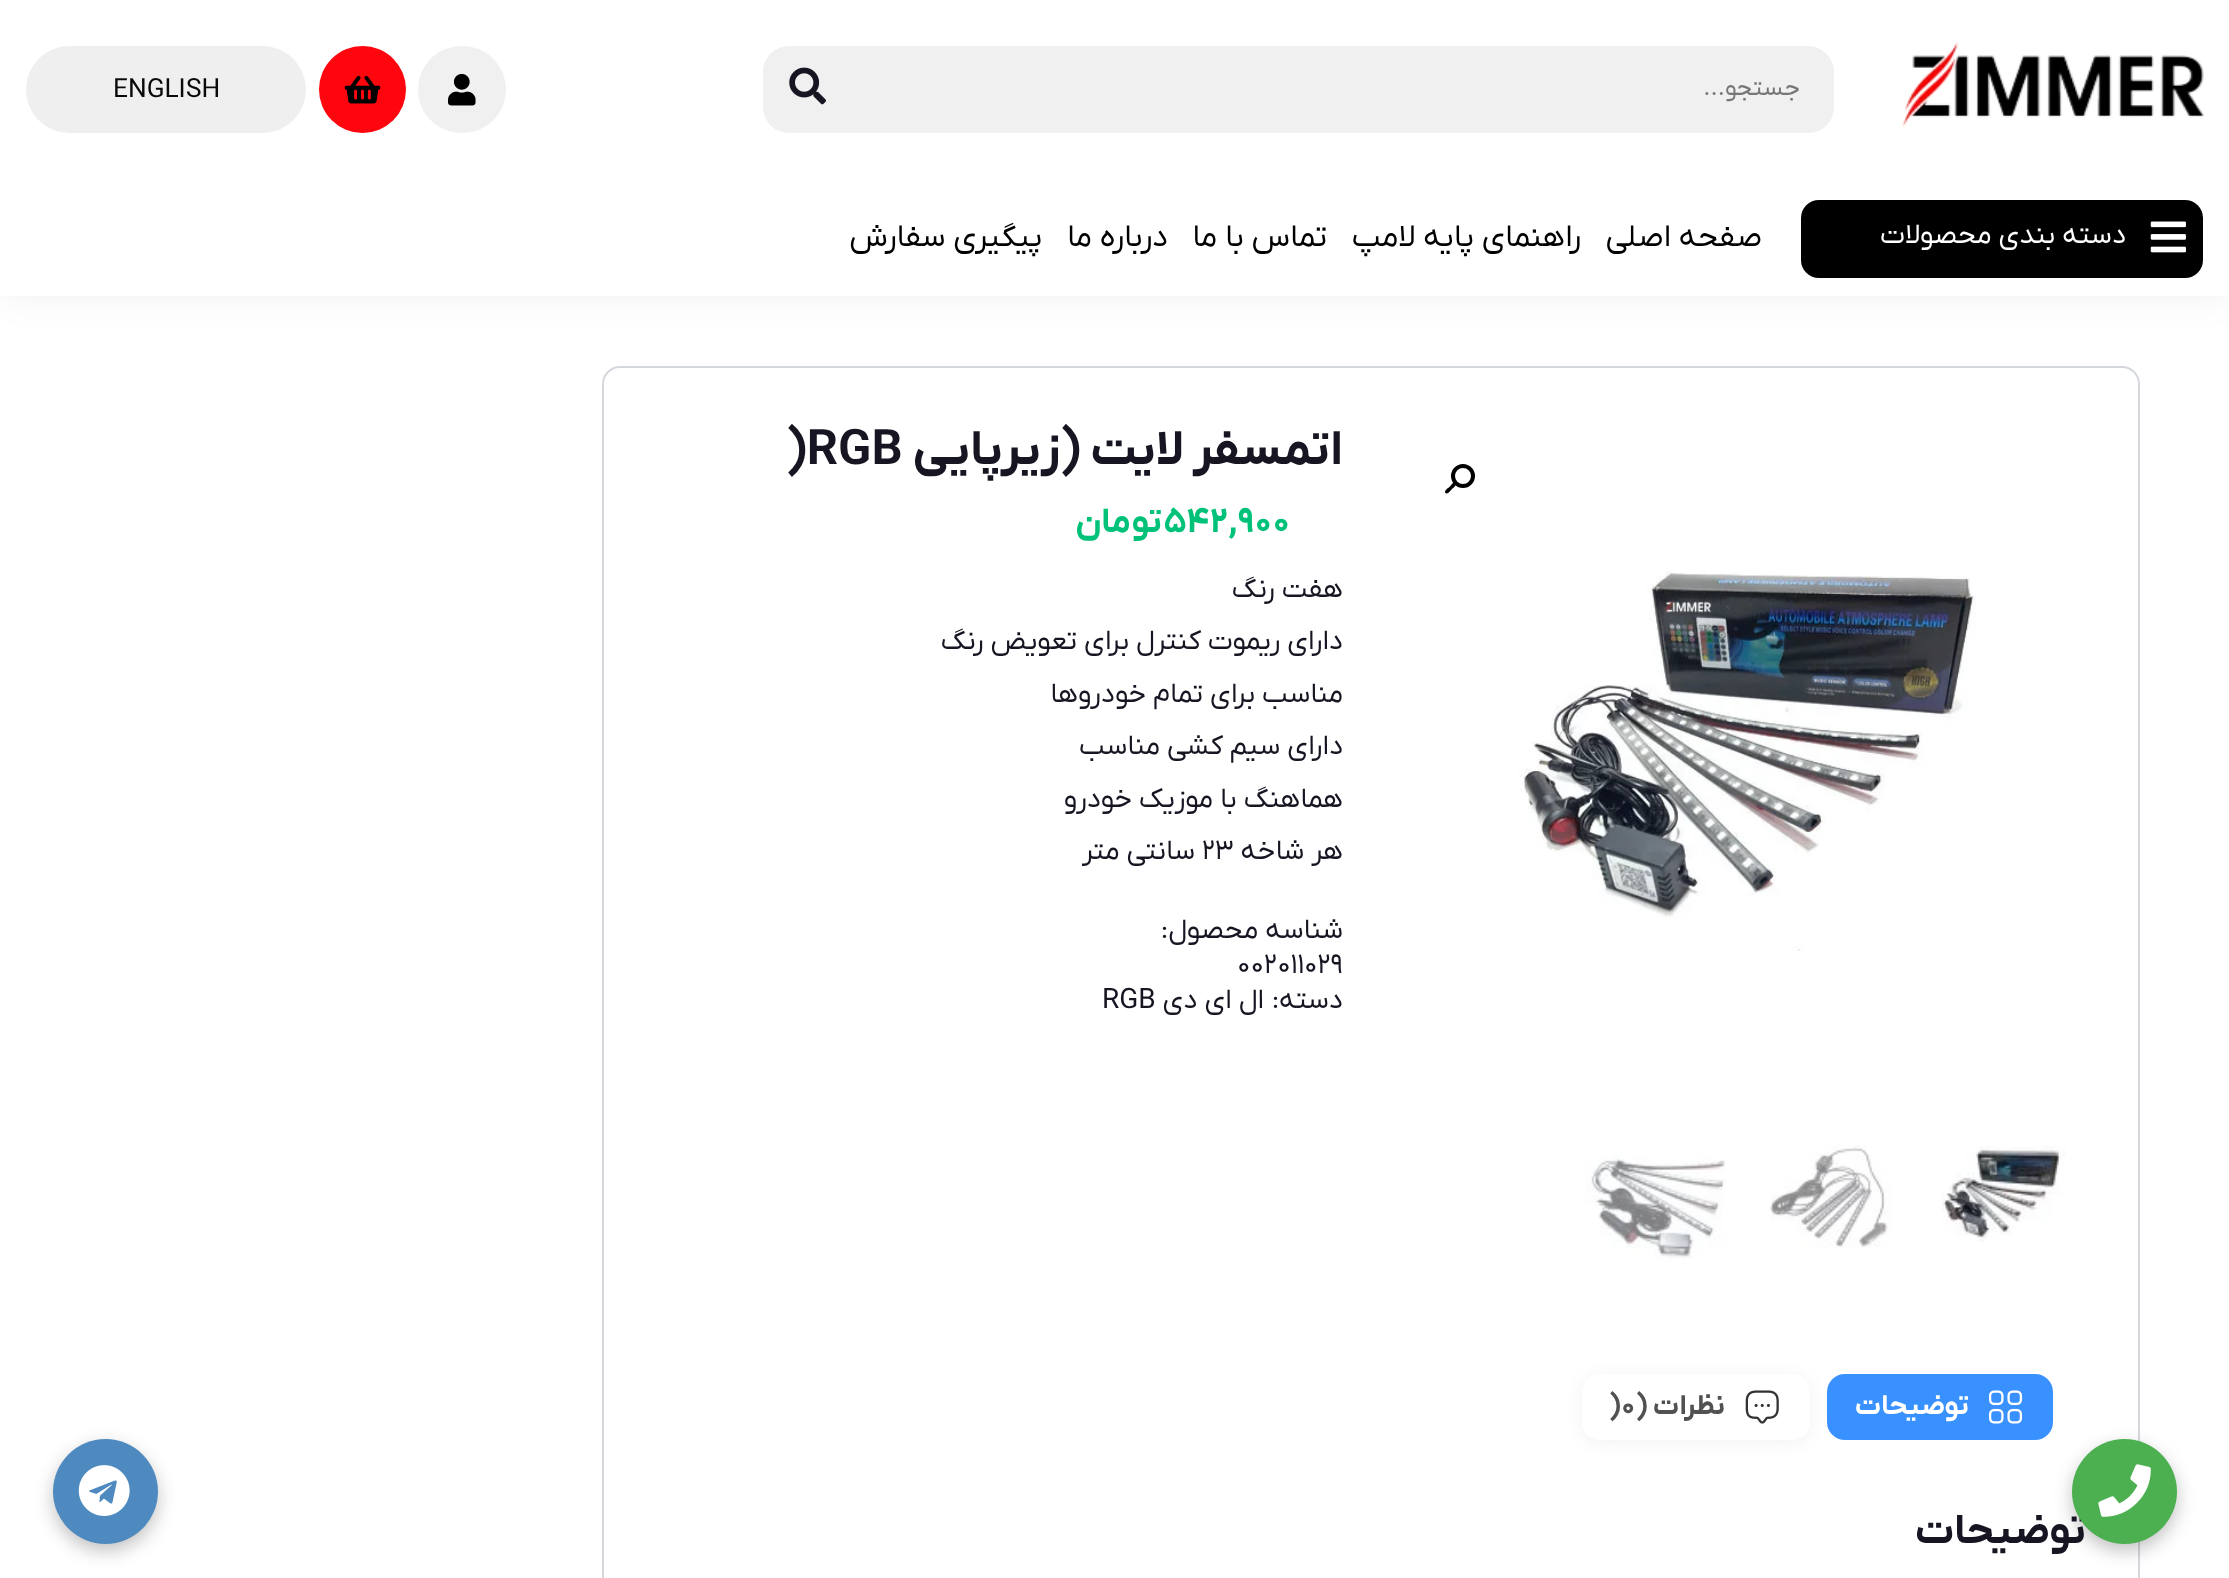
<svg xmlns="http://www.w3.org/2000/svg" width="2229" height="1578" viewBox="0 0 2229 1578">
  <defs>
    <filter id="blur1" x="-50%" y="-200%" width="200%" height="500%"><feGaussianBlur stdDeviation="17.5"/></filter>
    <filter id="blur2" x="-50%" y="-200%" width="200%" height="500%"><feGaussianBlur stdDeviation="9"/></filter>
  </defs>
  <rect width="100%" height="100%" fill="#ffffff"/>
  <rect x="0" y="0" width="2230" height="296" fill="#000000" fill-opacity="0.06" filter="url(#blur1)"/>
  <rect x="0" y="0" width="2229" height="296" fill="#ffffff"/>
  <image x="1902" y="42" width="302" height="85" href="img1.png"/>
  <rect x="763" y="46" width="1071" height="87" rx="26" fill="#f0f0f0"/>
  <text x="1800" y="95" font-family="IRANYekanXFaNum" font-size="24.5" direction="rtl" fill="#757575">جستجو...</text>
  <image x="789" y="67" width="37" height="38" href="img2.png"/>
  <rect x="418" y="46" width="88" height="87" rx="43.5" fill="#f0f0f0"/>
  <image x="448" y="73" width="28" height="33" href="img3.png"/>
  <circle cx="362.5" cy="89.5" r="43.5" fill="#ff050d"/>
  <image x="344" y="75" width="37" height="29" href="img4.png"/>
  <rect x="26" y="46" width="280" height="87" rx="43.5" fill="#efefef"/>
  <text x="113" y="97" font-family="IRANYekanXFaNum" font-size="26.25" fill="#0a0a0a">ENGLISH</text>
  <rect x="1801" y="200" width="402" height="78" rx="18" fill="#000000"/>
  <image x="2150" y="221" width="36" height="32" href="img5.png"/>
  <text x="2126" y="243" font-family="IRANYekanXFaNum" font-size="28" direction="rtl" fill="#ffffff">دسته بندی محصولات</text>
  <text x="1762" y="246" font-family="IRANYekanXFaNum" font-size="31.5" direction="rtl" fill="#000000">صفحه اصلی</text>
  <text x="1581" y="246" font-family="IRANYekanXFaNum" font-size="31.5" direction="rtl" fill="#000000">راهنمای پایه لامپ</text>
  <text x="1327" y="246" font-family="IRANYekanXFaNum" font-size="31.5" direction="rtl" fill="#000000">تماس با ما</text>
  <text x="1168" y="246" font-family="IRANYekanXFaNum" font-size="31.5" direction="rtl" fill="#000000">درباره ما</text>
  <text x="1042" y="246" font-family="IRANYekanXFaNum" font-size="31.5" direction="rtl" fill="#000000">پیگیری سفارش</text>
  <rect x="603" y="367" width="1536" height="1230" rx="17" fill="none" stroke="#d4d8dd" stroke-width="2"/>
  <rect x="1582" y="1376" width="228" height="66" rx="18" fill="#000000" fill-opacity="0.05" filter="url(#blur2)"/>
  <rect x="1827" y="1374" width="226" height="66" rx="18" fill="#0072ff" fill-opacity="0.78"/>
  <rect x="2072" y="1446" width="105" height="105" rx="52.5" fill="#000000" fill-opacity="0.24" filter="url(#blur2)"/>
  <text x="2086" y="1543" font-family="IRANYekanXFaNum" font-size="42" font-weight="bold" direction="rtl" fill="#181522">توضیحات</text>
  <circle cx="2124.5" cy="1491.5" r="52.5" fill="#4caf50"/>
  <image x="2098" y="1464" width="53" height="53" href="img6.png"/>
  <circle cx="1463" cy="476" r="10" fill="none" stroke="#000000" stroke-width="4"/>
  <path d="M1455.5 483C1457.5 485 1453 488 1451.5 489.5C1450.5 490.5 1447.5 495 1445.5 493C1443.5 491 1448 488 1449.5 487C1450.5 486 1453.5 481 1455.5 483Z" fill="#000000"/>
  <image x="1519" y="571" width="458" height="380" href="img7.png"/>
  <image x="1942" y="1146" width="124" height="96" href="img8.png"/>
  <image x="1770" y="1145" width="122" height="104" href="img9.png"/>
  <image x="1585" y="1155" width="141" height="104" href="img10.png"/>
  <text x="1343" y="464" font-family="IRANYekanXFaNum" font-size="49" font-weight="bold" direction="rtl" fill="#181522">اتمسفر لایت (زیرپایی</text>
  <text x="786" y="464" font-family="IRANYekanXFaNum" font-size="49" font-weight="bold" fill="#181522">)RGB</text>
  <text x="1164" y="532" font-family="IRANYekanXFaNum" font-size="35" font-weight="bold" fill="#00c178">542,900</text>
  <text x="1162" y="532" font-family="IRANYekanXFaNum" font-size="35" font-weight="bold" direction="rtl" fill="#00c178">تومان</text>
  <text x="1343" y="597" font-family="IRANYekanXFaNum" font-size="28" direction="rtl" fill="#181522">هفت رنگ</text>
  <text x="1343" y="649" font-family="IRANYekanXFaNum" font-size="28" direction="rtl" fill="#181522">دارای ریموت کنترل برای تعویض رنگ</text>
  <text x="1343" y="702" font-family="IRANYekanXFaNum" font-size="28" direction="rtl" fill="#181522">مناسب برای تمام خودروها</text>
  <text x="1343" y="754" font-family="IRANYekanXFaNum" font-size="28" direction="rtl" fill="#181522">دارای سیم کشی مناسب</text>
  <text x="1343" y="807" font-family="IRANYekanXFaNum" font-size="28" direction="rtl" fill="#181522">هماهنگ با موزیک خودرو</text>
  <text x="1343" y="859" font-family="IRANYekanXFaNum" font-size="28" direction="rtl" fill="#181522">هر شاخه</text>
  <text x="1202" y="859" font-family="IRANYekanXFaNum" font-size="28" fill="#181522">۲۳</text>
  <text x="1195" y="859" font-family="IRANYekanXFaNum" font-size="28" direction="rtl" fill="#181522">سانتی متر</text>
  <text x="1343" y="938" font-family="IRANYekanXFaNum" font-size="28" direction="rtl" fill="#181522">شناسه محصول:</text>
  <text x="1237" y="973" font-family="IRANYekanXFaNum" font-size="28" fill="#181522">002011029</text>
  <text x="1343" y="1008" font-family="IRANYekanXFaNum" font-size="28" direction="rtl" fill="#181522">دسته:</text>
  <text x="1264" y="1008" font-family="IRANYekanXFaNum" font-size="28" direction="rtl" fill="#181522">ال ای دی</text>
  <text x="1102" y="1008" font-family="IRANYekanXFaNum" font-size="28" fill="#181522">RGB</text>
  <image x="1988" y="1390" width="35" height="34" href="img11.png"/>
  <text x="1969" y="1414" font-family="IRANYekanXFaNum" font-size="28" font-weight="bold" direction="rtl" fill="#ffffff">توضیحات</text>
  <rect x="1582" y="1374" width="228" height="66" rx="18" fill="#ffffff"/>
  <image x="1745" y="1390" width="34" height="34" href="img12.png"/>
  <text x="1725" y="1414" font-family="IRANYekanXFaNum" font-size="28" font-weight="bold" direction="rtl" fill="#515151">نظرات (</text>
  <text x="1609" y="1414" font-family="IRANYekanXFaNum" font-size="28" font-weight="bold" fill="#515151">)0</text>
  <rect x="53" y="1446" width="105" height="105" rx="52.5" fill="#000000" fill-opacity="0.24" filter="url(#blur2)"/>
  <circle cx="105.5" cy="1491.5" r="52.5" fill="#4e8abf"/>
  <image x="78" y="1465" width="52" height="51" href="img13.png"/>
</svg>
